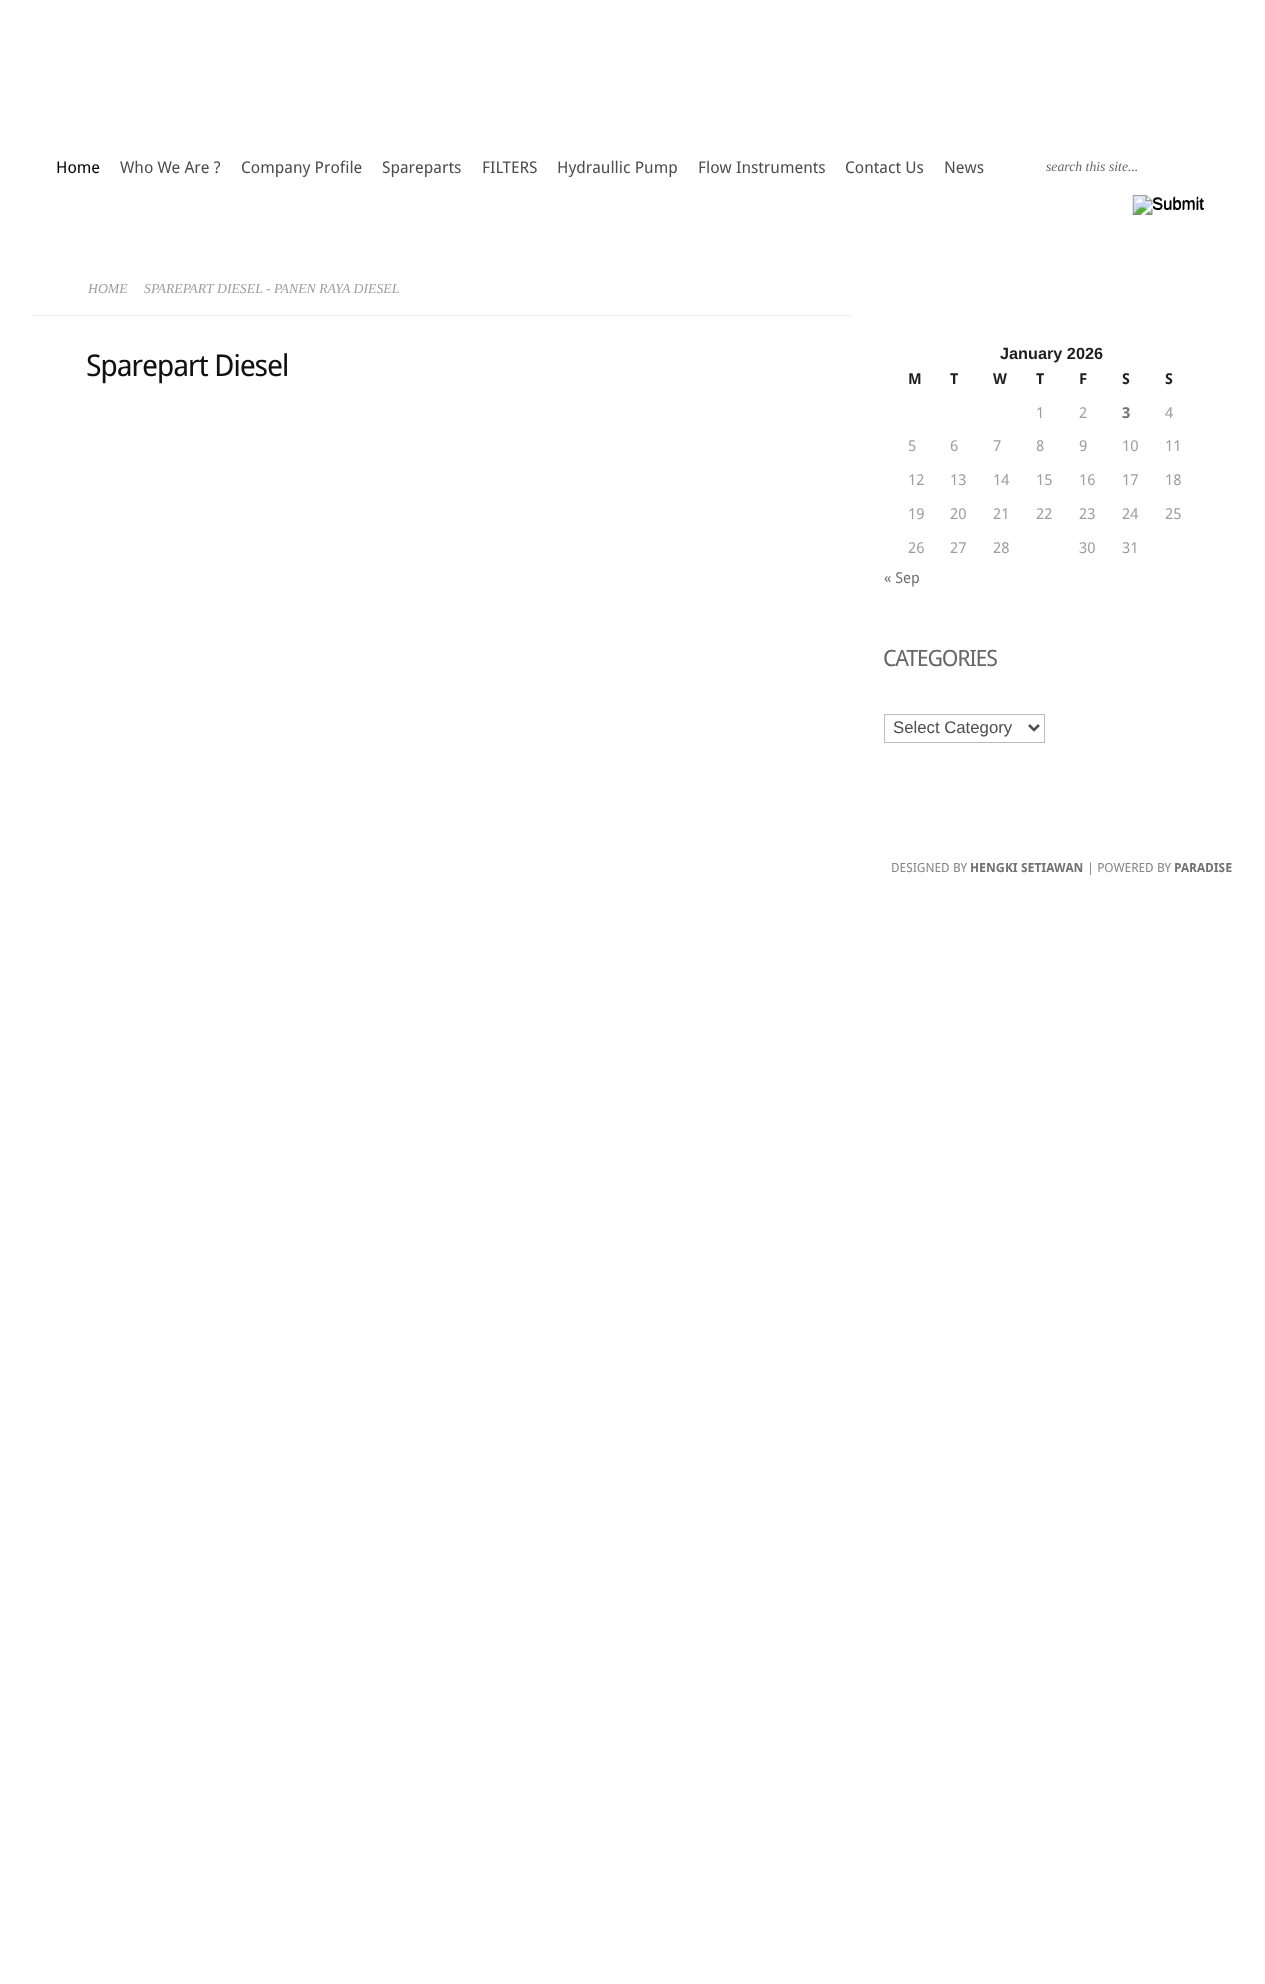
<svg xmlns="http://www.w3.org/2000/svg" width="1265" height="1984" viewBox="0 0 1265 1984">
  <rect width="100%" height="100%" fill="#ffffff"/>
  <text x="56" y="173" font-family="Droid Sans" font-size="16.25" fill="#000000">Home</text>
  <text x="120" y="173" font-family="Droid Sans" font-size="16.25" fill="#4e4e4e">Who We Are ?</text>
  <text x="241" y="173" font-family="Droid Sans" font-size="16.25" fill="#4e4e4e">Company Profile</text>
  <text x="382" y="173" font-family="Droid Sans" font-size="16.25" fill="#4e4e4e">Spareparts</text>
  <text x="482" y="173" font-family="Droid Sans" font-size="16.25" fill="#4e4e4e">FILTERS</text>
  <text x="557" y="173" font-family="Droid Sans" font-size="16.25" fill="#4e4e4e">Hydraullic Pump</text>
  <text x="698" y="173" font-family="Droid Sans" font-size="16.25" fill="#4e4e4e">Flow Instruments</text>
  <text x="845" y="173" font-family="Droid Sans" font-size="16.25" fill="#4e4e4e">Contact Us</text>
  <text x="944" y="173" font-family="Droid Sans" font-size="16.25" fill="#4e4e4e">News</text>
  <text x="1046" y="171" font-family="Liberation Serif" font-size="13.75" font-style="italic" fill="#686767">search this site...</text>
  <image x="1132" y="195" width="72" height="20" href="img1.png"/>
  <text x="1152" y="209" font-family="Liberation Sans" font-size="16.75" fill="#000000">Submit</text>
  <rect x="31" y="315" width="820" height="1" fill="#ebebeb"/>
  <text x="88" y="293" font-family="Liberation Serif" font-size="13.75" font-style="italic" fill="#9e9e9e">HOME</text>
  <text x="144" y="293" font-family="Liberation Serif" font-size="13.75" font-style="italic" fill="#9e9e9e">SPAREPART DIESEL - PANEN RAYA DIESEL</text>
  <text x="86" y="376" font-family="Droid Sans" font-size="30" letter-spacing="-1.25" fill="#111111">Sparepart Diesel</text>
  <text x="1000" y="359" font-family="Liberation Sans" font-size="16.25" font-weight="bold" fill="#201f1f">January 2026</text>
  <text x="908" y="384" font-family="Droid Sans" font-size="15" font-weight="bold" fill="#201f1f">M</text>
  <text x="950" y="384" font-family="Droid Sans" font-size="15" font-weight="bold" fill="#201f1f">T</text>
  <text x="993" y="384" font-family="Droid Sans" font-size="15" font-weight="bold" fill="#201f1f">W</text>
  <text x="1036" y="384" font-family="Droid Sans" font-size="15" font-weight="bold" fill="#201f1f">T</text>
  <text x="1079" y="384" font-family="Droid Sans" font-size="15" font-weight="bold" fill="#201f1f">F</text>
  <text x="1122" y="384" font-family="Droid Sans" font-size="15" font-weight="bold" fill="#201f1f">S</text>
  <text x="1165" y="384" font-family="Droid Sans" font-size="15" font-weight="bold" fill="#201f1f">S</text>
  <text x="1036" y="418" font-family="Droid Sans" font-size="15" fill="#9e9e9e">1</text>
  <text x="1079" y="418" font-family="Droid Sans" font-size="15" fill="#9e9e9e">2</text>
  <text x="1122" y="418" font-family="Droid Sans" font-size="15" font-weight="bold" fill="#727272">3</text>
  <text x="1165" y="418" font-family="Droid Sans" font-size="15" fill="#9e9e9e">4</text>
  <text x="908" y="451" font-family="Droid Sans" font-size="15" fill="#9e9e9e">5</text>
  <text x="950" y="451" font-family="Droid Sans" font-size="15" fill="#9e9e9e">6</text>
  <text x="993" y="451" font-family="Droid Sans" font-size="15" fill="#9e9e9e">7</text>
  <text x="1036" y="451" font-family="Droid Sans" font-size="15" fill="#9e9e9e">8</text>
  <text x="1079" y="451" font-family="Droid Sans" font-size="15" fill="#9e9e9e">9</text>
  <text x="1122" y="451" font-family="Droid Sans" font-size="15" fill="#9e9e9e">10</text>
  <text x="1165" y="451" font-family="Droid Sans" font-size="15" fill="#9e9e9e">11</text>
  <text x="908" y="485" font-family="Droid Sans" font-size="15" fill="#9e9e9e">12</text>
  <text x="950" y="485" font-family="Droid Sans" font-size="15" fill="#9e9e9e">13</text>
  <text x="993" y="485" font-family="Droid Sans" font-size="15" fill="#9e9e9e">14</text>
  <text x="1036" y="485" font-family="Droid Sans" font-size="15" fill="#9e9e9e">15</text>
  <text x="1079" y="485" font-family="Droid Sans" font-size="15" fill="#9e9e9e">16</text>
  <text x="1122" y="485" font-family="Droid Sans" font-size="15" fill="#9e9e9e">17</text>
  <text x="1165" y="485" font-family="Droid Sans" font-size="15" fill="#9e9e9e">18</text>
  <text x="908" y="519" font-family="Droid Sans" font-size="15" fill="#9e9e9e">19</text>
  <text x="950" y="519" font-family="Droid Sans" font-size="15" fill="#9e9e9e">20</text>
  <text x="993" y="519" font-family="Droid Sans" font-size="15" fill="#9e9e9e">21</text>
  <text x="1036" y="519" font-family="Droid Sans" font-size="15" fill="#9e9e9e">22</text>
  <text x="1079" y="519" font-family="Droid Sans" font-size="15" fill="#9e9e9e">23</text>
  <text x="1122" y="519" font-family="Droid Sans" font-size="15" fill="#9e9e9e">24</text>
  <text x="1165" y="519" font-family="Droid Sans" font-size="15" fill="#9e9e9e">25</text>
  <text x="908" y="553" font-family="Droid Sans" font-size="15" fill="#9e9e9e">26</text>
  <text x="950" y="553" font-family="Droid Sans" font-size="15" fill="#9e9e9e">27</text>
  <text x="993" y="553" font-family="Droid Sans" font-size="15" fill="#9e9e9e">28</text>
  <text x="1079" y="553" font-family="Droid Sans" font-size="15" fill="#9e9e9e">30</text>
  <text x="1122" y="553" font-family="Droid Sans" font-size="15" fill="#9e9e9e">31</text>
  <text x="884" y="583" font-family="Droid Sans" font-size="15" fill="#727272">« Sep</text>
  <text x="883" y="666" font-family="Droid Sans" font-size="22.5" letter-spacing="-1.25" fill="#686767">CATEGORIES</text>
  <rect x="884.5" y="714.5" width="160" height="28" fill="none" stroke="#bbbbbb"/>
  <path d="M1029 725L1034 730L1039 725" fill="none" stroke="#4e4e4e" stroke-width="2.5"/>
  <text x="893" y="733" font-family="Liberation Sans" font-size="16.75" fill="#4e4e4e">Select Category</text>
  <text x="891" y="872" font-family="Droid Sans" font-size="12.5" fill="#858585">DESIGNED BY</text>
  <text x="970" y="872" font-family="Droid Sans" font-size="12.5" font-weight="bold" fill="#727272">HENGKI SETIAWAN</text>
  <text x="1087" y="872" font-family="Droid Sans" font-size="12.5" fill="#858585">| POWERED BY</text>
  <text x="1174" y="872" font-family="Droid Sans" font-size="12.5" font-weight="bold" fill="#727272">PARADISE</text>
</svg>
